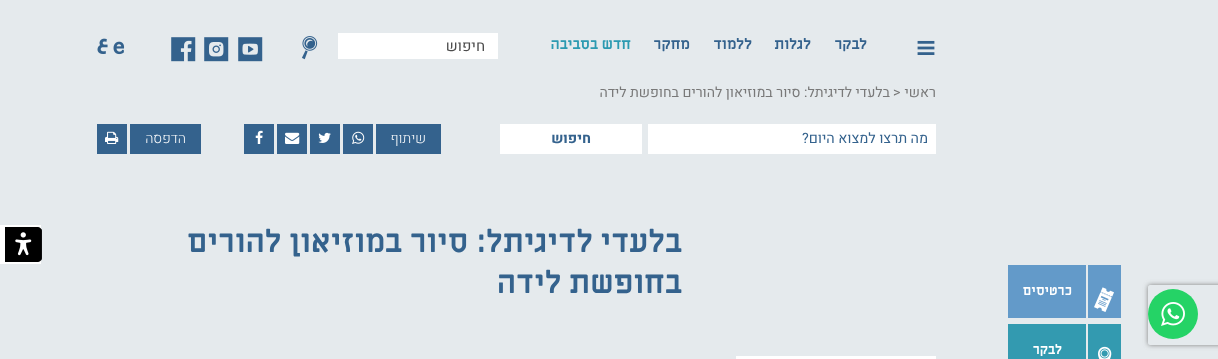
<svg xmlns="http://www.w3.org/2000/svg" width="1218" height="359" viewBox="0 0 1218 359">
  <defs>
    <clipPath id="clip1"><path d="M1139 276H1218V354H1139ZM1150 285H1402C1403 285 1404 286 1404 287V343C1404 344 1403 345 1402 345H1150C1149 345 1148 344 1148 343V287C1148 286 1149 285 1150 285Z" clip-rule="evenodd"/></clipPath>
    <filter id="blur1" x="-50%" y="-200%" width="200%" height="500%"><feGaussianBlur stdDeviation="2.5"/></filter>
  </defs>
  <rect width="100%" height="100%" fill="#e5eaed"/>
  <image x="917" y="40" width="18" height="15" href="img1.png"/>
  <text x="867" y="49" font-family="Miriam Libre" font-size="15" font-weight="bold" direction="rtl" fill="#34628d">לבקר</text>
  <text x="811" y="49" font-family="Miriam Libre" font-size="15" font-weight="bold" direction="rtl" fill="#34628d">לגלות</text>
  <text x="752" y="49" font-family="Miriam Libre" font-size="15" font-weight="bold" direction="rtl" fill="#34628d">ללמוד</text>
  <text x="690" y="49" font-family="Miriam Libre" font-size="15" font-weight="bold" direction="rtl" fill="#34628d">מחקר</text>
  <text x="631" y="49" font-family="Miriam Libre" font-size="15" font-weight="bold" direction="rtl" fill="#2c9ab1">חדש בסביבה</text>
  <rect x="338" y="33" width="160" height="26" fill="#ffffff"/>
  <text x="485" y="51" font-family="Heebo" font-size="15" direction="rtl" fill="#4c4c4c">חיפוש</text>
  <image x="302" y="36" width="16" height="24" href="img2.png"/>
  <image x="238" y="37" width="25" height="25" href="img3.png"/>
  <image x="204" y="37" width="25" height="25" href="img4.png"/>
  <image x="171" y="37" width="25" height="25" href="img5.png"/>
  <image x="113" y="41" width="12" height="14" href="img6.png"/>
  <image x="97" y="38" width="11" height="16" href="img7.png"/>
  <text x="936" y="97" font-family="Heebo" font-size="14.1" direction="rtl" fill="#797979">ראשי</text>
  <text x="893" y="97" font-family="Heebo" font-size="14.1" fill="#797979">&gt;</text>
  <text x="890" y="97" font-family="Heebo" font-size="14.1" direction="rtl" fill="#797979">בלעדי לדיגיתל: סיור במוזיאון להורים בחופשת לידה</text>
  <rect x="648" y="124" width="288" height="30" fill="#ffffff"/>
  <text x="928" y="143" font-family="Heebo" font-size="14.25" direction="rtl" fill="#34628d">מה תרצו למצוא היום?</text>
  <rect x="500" y="124" width="142" height="30" fill="#ffffff"/>
  <text x="591" y="143" font-family="Heebo" font-size="14.1" font-weight="bold" direction="rtl" fill="#34628d">חיפוש</text>
  <rect x="376" y="124" width="65" height="30" fill="#34628d"/>
  <text x="426" y="143" font-family="Heebo" font-size="14.25" font-weight="300" direction="rtl" fill="#ffffff">שיתוף</text>
  <rect x="343" y="124" width="30" height="30" fill="#34628d"/>
  <image x="352" y="131" width="13" height="13" href="img8.png"/>
  <rect x="310" y="124" width="30" height="30" fill="#34628d"/>
  <image x="318" y="132" width="13" height="11" href="img9.png"/>
  <rect x="277" y="124" width="30" height="30" fill="#34628d"/>
  <image x="285" y="132" width="15" height="12" href="img10.png"/>
  <rect x="244" y="124" width="30" height="30" fill="#34628d"/>
  <image x="255" y="130" width="8" height="14" href="img11.png"/>
  <rect x="130" y="124" width="71" height="30" fill="#34628d"/>
  <text x="186" y="143" font-family="Heebo" font-size="14.25" font-weight="300" direction="rtl" fill="#ffffff">הדפסה</text>
  <rect x="97" y="124" width="30" height="30" fill="#34628d"/>
  <image x="105" y="131" width="14" height="13" href="img12.png"/>
  <text x="682" y="252" font-family="Miriam Libre" font-size="31.6" font-weight="bold" direction="rtl" fill="#34628d">בלעדי לדיגיתל: סיור במוזיאון להורים</text>
  <text x="682" y="293" font-family="Miriam Libre" font-size="31.6" font-weight="bold" direction="rtl" fill="#34628d">בחופשת לידה</text>
  <rect x="736" y="356" width="200" height="3" fill="#ffffff"/>
  <circle cx="1173" cy="314" r="25" fill="#25d366"/>
  <image x="1161" y="302" width="24" height="24" href="img13.png"/>
  <rect x="1088" y="265" width="33" height="53" fill="#639ac9"/>
  <image x="1094" y="287" width="20" height="25" href="img14.png"/>
  <rect x="1008" y="265" width="78" height="53" fill="#639ac9"/>
  <text x="1072" y="295" font-family="Miriam Libre" font-size="13.5" font-weight="bold" direction="rtl" fill="#ffffff">כרטיסים</text>
  <rect x="1088" y="324" width="33" height="35" fill="#339ab0"/>
  <image x="1098" y="346" width="14" height="13" href="img15.png"/>
  <rect x="1008" y="324" width="78" height="35" fill="#339ab0"/>
  <text x="1062" y="354" font-family="Miriam Libre" font-size="13.5" font-weight="bold" direction="rtl" fill="#ffffff">לבקר</text>
  <rect x="0" y="225" width="41" height="39" fill="#ffffff"/>
  <image x="41" y="229" width="1" height="32" href="img17.png"/>
  <image x="5" y="227" width="37" height="35" href="img16.png"/>
  <g clip-path="url(#clip1)">
    <rect x="1148" y="285" width="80" height="60" rx="2" fill="#808080" filter="url(#blur1)"/>
  </g>
</svg>
